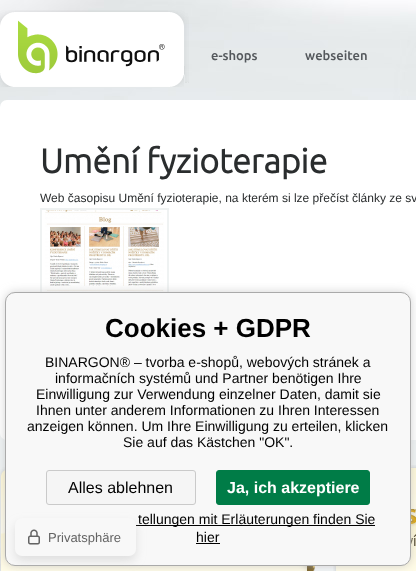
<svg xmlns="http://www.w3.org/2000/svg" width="416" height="571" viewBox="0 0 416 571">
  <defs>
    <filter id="blur1" x="-50%" y="-200%" width="200%" height="500%"><feGaussianBlur stdDeviation="5"/></filter>
  </defs>
  <rect width="100%" height="100%" fill="#ffffff"/>
  <image x="0" y="0" width="416" height="571" href="img1.png"/>
  <image x="0" y="10" width="189" height="77" href="img2.png"/>
  <text x="211" y="60" font-family="Ubuntu" font-size="13" font-weight="500" fill="#54585c">e-shops</text>
  <text x="305" y="60" font-family="Ubuntu" font-size="13" font-weight="500" fill="#54585c">webseiten</text>
  <rect x="0" y="100" width="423" height="340" rx="7" fill="#ffffff"/>
  <text x="40" y="173" font-family="Ubuntu" font-size="34" font-weight="bold" fill="#2a2d2e">Umění fyzioterapie</text>
  <text x="40" y="202" font-family="Liberation Sans" font-size="12" fill="#2a2d2e">Web časopisu Umění fyzioterapie, na kterém si lze přečíst články ze sv</text>
  <rect x="41" y="209" width="127" height="102" fill="none" stroke="#eff2f2" stroke-width="2"/>
  <image x="45" y="210" width="119" height="82" href="img3.png"/>
  <image x="0" y="467" width="315" height="104" href="img4.png"/>
  <image x="333" y="465" width="83" height="106" href="img5.png"/>
  <rect x="5" y="292" width="406" height="274" rx="10" fill="#c8c8c8" fill-opacity="0.8" filter="url(#blur1)"/>
  <rect x="5.5" y="292.5" width="405" height="273" rx="9.5" fill="#f8f8f8" stroke="#aaaaaa"/>
  <text x="105" y="337" font-family="Liberation Sans" font-size="26" font-weight="bold" fill="#000000">Cookies + GDPR</text>
  <text x="45" y="367" font-family="Liberation Sans" font-size="14" fill="#000000">BINARGON® – tvorba e-shopů, webových stránek a</text>
  <text x="55" y="383" font-family="Liberation Sans" font-size="14" fill="#000000">informačních systémů und Partner benötigen Ihre</text>
  <text x="36" y="399" font-family="Liberation Sans" font-size="14" fill="#000000">Einwilligung zur Verwendung einzelner Daten, damit sie</text>
  <text x="36" y="415" font-family="Liberation Sans" font-size="14" fill="#000000">Ihnen unter anderem Informationen zu Ihren Interessen</text>
  <text x="27" y="431" font-family="Liberation Sans" font-size="14" fill="#000000">anzeigen können. Um Ihre Einwilligung zu erteilen, klicken</text>
  <text x="123" y="447" font-family="Liberation Sans" font-size="14" fill="#000000">Sie auf das Kästchen "OK".</text>
  <rect x="46.5" y="470.5" width="149" height="34" rx="2.5" fill="#f5f5f5" stroke="#cacaca"/>
  <text x="68" y="493" font-family="Liberation Sans" font-size="16" fill="#000000">Alles ablehnen</text>
  <rect x="216.5" y="470.5" width="153" height="34" rx="2.5" fill="#007c47" stroke="#007c47"/>
  <text x="227" y="493" font-family="Liberation Sans" font-size="16" font-weight="bold" fill="#ffffff">Ja, ich akzeptiere</text>
  <rect x="136" y="525" width="239" height="1" fill="#000000"/>
  <text x="138" y="524" font-family="Liberation Sans" font-size="14" fill="#000000">tellungen mit Erläuterungen finden Sie</text>
  <text x="196" y="542" font-family="Liberation Sans" font-size="14" fill="#000000">hier</text>
  <rect x="196" y="543" width="24" height="1" fill="#000000"/>
  <rect x="15" y="523" width="121" height="38" rx="7" fill="#c8c8c8" fill-opacity="0.5" filter="url(#blur1)"/>
  <rect x="15" y="518" width="121" height="38" rx="7" fill="#f8f8f8"/>
  <image x="28" y="529" width="12" height="16" href="img6.png"/>
  <text x="48" y="542" font-family="Liberation Sans" font-size="13" fill="#646464">Privatsphäre</text>
</svg>
